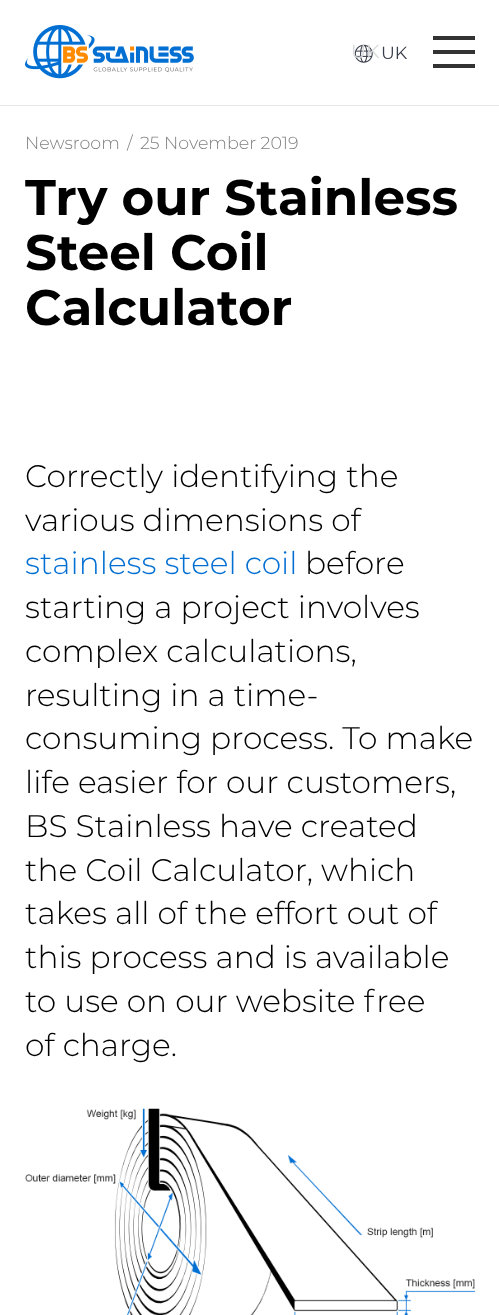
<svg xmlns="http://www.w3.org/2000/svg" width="499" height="1315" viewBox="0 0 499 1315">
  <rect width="100%" height="100%" fill="#ffffff"/>
  <rect x="0" y="105" width="499" height="1" fill="#e6e6e6"/>
  <image x="25" y="25" width="169" height="54" href="img1.png"/>
  <image x="354" y="44" width="19" height="19" href="img2.png"/>
  <text x="351" y="58" font-family="Montserrat" font-size="19" fill="#d7d8da">UK</text>
  <text x="381" y="59" font-family="Montserrat" font-size="17.5" fill="#393e4a">UK</text>
  <rect x="433" y="36" width="42" height="4" fill="#333333"/>
  <rect x="433" y="50" width="42" height="4" fill="#333333"/>
  <rect x="433" y="64" width="42" height="4" fill="#333333"/>
  <text x="25" y="149" font-family="Montserrat" font-size="17.5" font-weight="300" fill="#808080">Newsroom</text>
  <text x="127" y="149" font-family="Montserrat" font-size="17.5" font-weight="300" fill="#808080">/</text>
  <text x="140" y="149" font-family="Montserrat" font-size="17.5" font-weight="300" fill="#808080">25 November 2019</text>
  <text x="25" y="215" font-family="Montserrat" font-size="50" font-weight="bold" fill="#000000">Try our Stainless</text>
  <text x="25" y="270" font-family="Montserrat" font-size="50" font-weight="bold" fill="#000000">Steel Coil</text>
  <text x="25" y="325" font-family="Montserrat" font-size="50" font-weight="bold" fill="#000000">Calculator</text>
  <text x="25" y="487" font-family="Montserrat" font-size="31.25" font-weight="300" fill="#000000">Correctly identifying the</text>
  <text x="25" y="531" font-family="Montserrat" font-size="31.25" font-weight="300" fill="#000000">various dimensions of</text>
  <text x="25" y="574" font-family="Montserrat" font-size="31.25" font-weight="300" fill="#026fd3">stainless steel coil</text>
  <text x="305" y="574" font-family="Montserrat" font-size="31.25" font-weight="300" fill="#000000">before</text>
  <text x="25" y="618" font-family="Montserrat" font-size="31.25" font-weight="300" fill="#000000">starting a project involves</text>
  <text x="25" y="662" font-family="Montserrat" font-size="31.25" font-weight="300" fill="#000000">complex calculations,</text>
  <text x="25" y="706" font-family="Montserrat" font-size="31.25" font-weight="300" fill="#000000">resulting in a time-</text>
  <text x="25" y="749" font-family="Montserrat" font-size="31.25" font-weight="300" fill="#000000">consuming process. To make</text>
  <text x="25" y="793" font-family="Montserrat" font-size="31.25" font-weight="300" fill="#000000">life easier for our customers,</text>
  <text x="25" y="837" font-family="Montserrat" font-size="31.25" font-weight="300" fill="#000000">BS Stainless have created</text>
  <text x="25" y="881" font-family="Montserrat" font-size="31.25" font-weight="300" fill="#000000">the Coil Calculator, which</text>
  <text x="25" y="924" font-family="Montserrat" font-size="31.25" font-weight="300" fill="#000000">takes all of the effort out of</text>
  <text x="25" y="968" font-family="Montserrat" font-size="31.25" font-weight="300" fill="#000000">this process and is available</text>
  <text x="25" y="1012" font-family="Montserrat" font-size="31.25" font-weight="300" fill="#000000">to use on our website free</text>
  <text x="25" y="1056" font-family="Montserrat" font-size="31.25" font-weight="300" fill="#000000">of charge.</text>
  <image x="25" y="1108" width="450" height="207" href="img3.png"/>
</svg>
